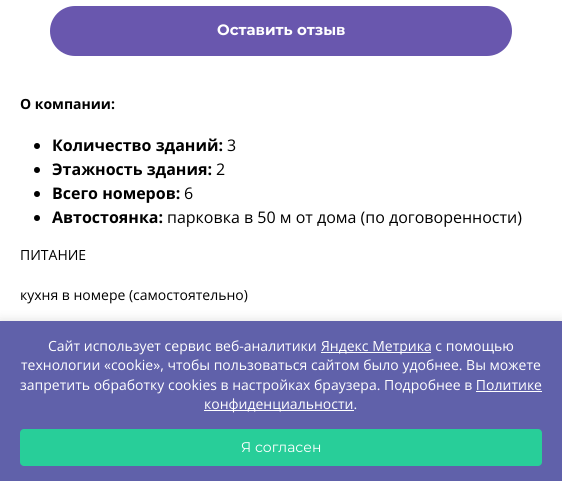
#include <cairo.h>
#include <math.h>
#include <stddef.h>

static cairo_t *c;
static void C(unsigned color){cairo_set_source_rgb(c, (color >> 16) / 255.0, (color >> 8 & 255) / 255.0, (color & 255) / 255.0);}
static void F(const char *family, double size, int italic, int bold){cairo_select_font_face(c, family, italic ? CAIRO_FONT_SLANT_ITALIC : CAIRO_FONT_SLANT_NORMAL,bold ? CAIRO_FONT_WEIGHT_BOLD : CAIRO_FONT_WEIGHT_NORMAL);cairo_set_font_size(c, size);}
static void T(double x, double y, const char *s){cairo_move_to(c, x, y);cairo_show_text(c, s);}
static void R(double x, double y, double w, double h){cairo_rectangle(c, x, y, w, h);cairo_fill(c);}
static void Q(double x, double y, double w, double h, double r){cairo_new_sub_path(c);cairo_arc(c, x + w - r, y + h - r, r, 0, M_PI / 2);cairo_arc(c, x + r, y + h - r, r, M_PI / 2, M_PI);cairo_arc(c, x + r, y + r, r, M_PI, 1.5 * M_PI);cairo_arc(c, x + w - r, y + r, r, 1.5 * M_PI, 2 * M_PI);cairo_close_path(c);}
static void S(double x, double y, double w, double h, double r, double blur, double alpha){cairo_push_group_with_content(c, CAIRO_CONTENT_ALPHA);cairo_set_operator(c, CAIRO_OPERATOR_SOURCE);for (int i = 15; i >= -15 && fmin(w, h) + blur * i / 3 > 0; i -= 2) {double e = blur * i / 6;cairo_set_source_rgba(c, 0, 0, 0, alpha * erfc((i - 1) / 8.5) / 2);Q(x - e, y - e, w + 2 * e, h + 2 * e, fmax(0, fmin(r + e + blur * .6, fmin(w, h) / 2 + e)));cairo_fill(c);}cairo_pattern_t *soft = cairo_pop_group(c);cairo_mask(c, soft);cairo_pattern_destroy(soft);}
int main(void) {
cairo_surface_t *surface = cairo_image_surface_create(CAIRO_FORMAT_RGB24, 562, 481);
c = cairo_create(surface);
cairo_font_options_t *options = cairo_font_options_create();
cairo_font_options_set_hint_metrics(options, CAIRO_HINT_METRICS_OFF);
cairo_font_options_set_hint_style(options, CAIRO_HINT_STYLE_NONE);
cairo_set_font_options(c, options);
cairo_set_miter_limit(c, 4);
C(0xffffff);
cairo_paint(c);
C(0x6957ae);
Q(50,6,462,50,25);
cairo_fill(c);
F("Montserrat",15,0,1);
C(0xffffff);
T(217,35,"Оставить отзыв");
F("Open Sans",14,0,1);
C(0x000000);
T(20,109,"О компании:");
cairo_new_path(c);
cairo_arc(c,37,146,3,0,2 * M_PI);
cairo_fill(c);
F("Open Sans",16,0,1);
T(52,151,"Количество зданий:");
F("Open Sans",16,0,0);
T(227,151,"3");
cairo_new_path(c);
cairo_arc(c,37,170,3,0,2 * M_PI);
cairo_fill(c);
F("Open Sans",16,0,1);
T(52,175,"Этажность здания:");
F("Open Sans",16,0,0);
T(216,175,"2");
cairo_new_path(c);
cairo_arc(c,37,194,3,0,2 * M_PI);
cairo_fill(c);
F("Open Sans",16,0,1);
T(52,199,"Всего номеров:");
F("Open Sans",16,0,0);
T(184,199,"6");
cairo_new_path(c);
cairo_arc(c,37,218,3,0,2 * M_PI);
cairo_fill(c);
F("Open Sans",16,0,1);
T(52,223,"Автостоянка:");
F("Open Sans",16,0,0);
T(167,223,"парковка в 50 м от дома (по договоренности)");
F("Open Sans",14,0,0);
T(20,260,"ПИТАНИЕ");
T(20,300,"кухня в номере (самостоятельно)");
C(0x000000);
S(0,319,562,160,0,5,.1);
C(0x6061aa);
R(0,321,562,160);
C(0xffffff);
T(48,351,"Сайт использует сервис веб-аналитики");
R(321,352,110,1);
T(321,351,"Яндекс Метрика с помощью");
T(21,370,"технологии «cookie», чтобы пользоваться сайтом было удобнее. Вы можете");
T(20,390,"запретить обработку cookies в настройках браузера. Подробнее в Политике");
R(204,410,150,1);
T(204,409,"конфиденциальности.");
R(476,391,66,1);
C(0x28ce99);
Q(20,429,522,37,4);
cairo_fill(c);
F("Montserrat",14,0,0);
C(0xffffff);
T(241,452,"Я согласен");
cairo_surface_write_to_png(surface, "o.png");
cairo_font_options_destroy(options);
cairo_destroy(c);
cairo_surface_destroy(surface);
return 0;
}
